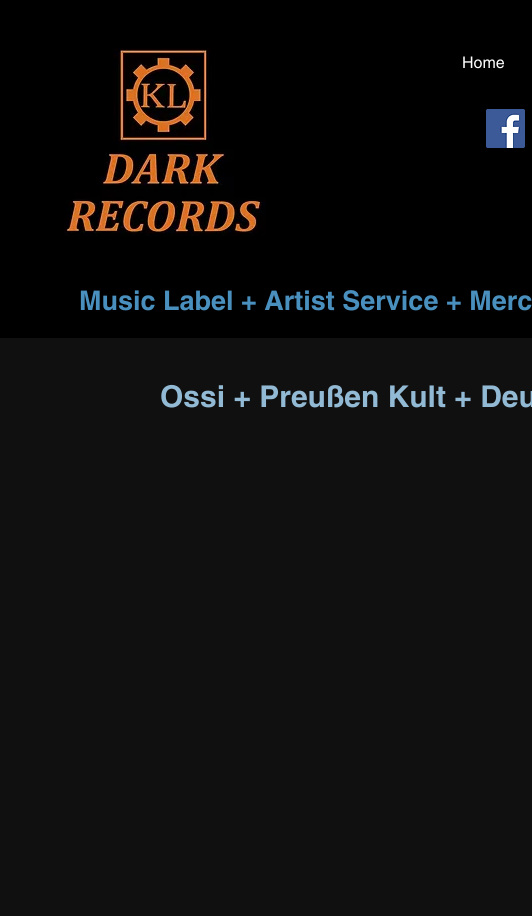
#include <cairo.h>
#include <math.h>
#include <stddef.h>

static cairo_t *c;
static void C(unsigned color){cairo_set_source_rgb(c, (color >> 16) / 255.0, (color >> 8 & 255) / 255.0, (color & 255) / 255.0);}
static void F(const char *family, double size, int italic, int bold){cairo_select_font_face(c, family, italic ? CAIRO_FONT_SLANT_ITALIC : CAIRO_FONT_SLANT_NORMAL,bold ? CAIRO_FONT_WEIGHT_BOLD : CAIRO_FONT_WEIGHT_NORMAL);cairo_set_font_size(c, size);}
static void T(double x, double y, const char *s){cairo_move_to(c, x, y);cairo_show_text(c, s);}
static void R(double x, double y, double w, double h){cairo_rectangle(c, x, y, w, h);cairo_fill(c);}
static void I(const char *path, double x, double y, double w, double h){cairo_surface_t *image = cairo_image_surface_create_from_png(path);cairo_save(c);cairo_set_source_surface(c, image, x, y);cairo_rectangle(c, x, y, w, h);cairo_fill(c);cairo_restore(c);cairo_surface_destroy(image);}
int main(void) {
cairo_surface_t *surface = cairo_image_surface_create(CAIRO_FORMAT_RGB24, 532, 916);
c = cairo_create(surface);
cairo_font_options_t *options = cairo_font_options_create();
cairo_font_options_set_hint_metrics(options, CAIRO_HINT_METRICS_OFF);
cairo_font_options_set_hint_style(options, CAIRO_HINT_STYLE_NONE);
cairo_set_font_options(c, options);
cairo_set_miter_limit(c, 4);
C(0x000000);
cairo_paint(c);
I("1.png",64,48,202,188);
F("helvetica",16,0,0);
C(0xffffff);
T(462,68,"Home");
I("2.png",486,109,39,39);
F("helvetica",27,0,1);
C(0x4a90bf);
T(79,310,"Music Label + Artist Service + Merc");
C(0x101010);
R(0,338,532,578);
F("helvetica",30,0,1);
C(0x93bad4);
T(160,407,"Ossi + Preußen Kult + Deu");
cairo_surface_write_to_png(surface, "o.png");
cairo_font_options_destroy(options);
cairo_destroy(c);
cairo_surface_destroy(surface);
return 0;
}
